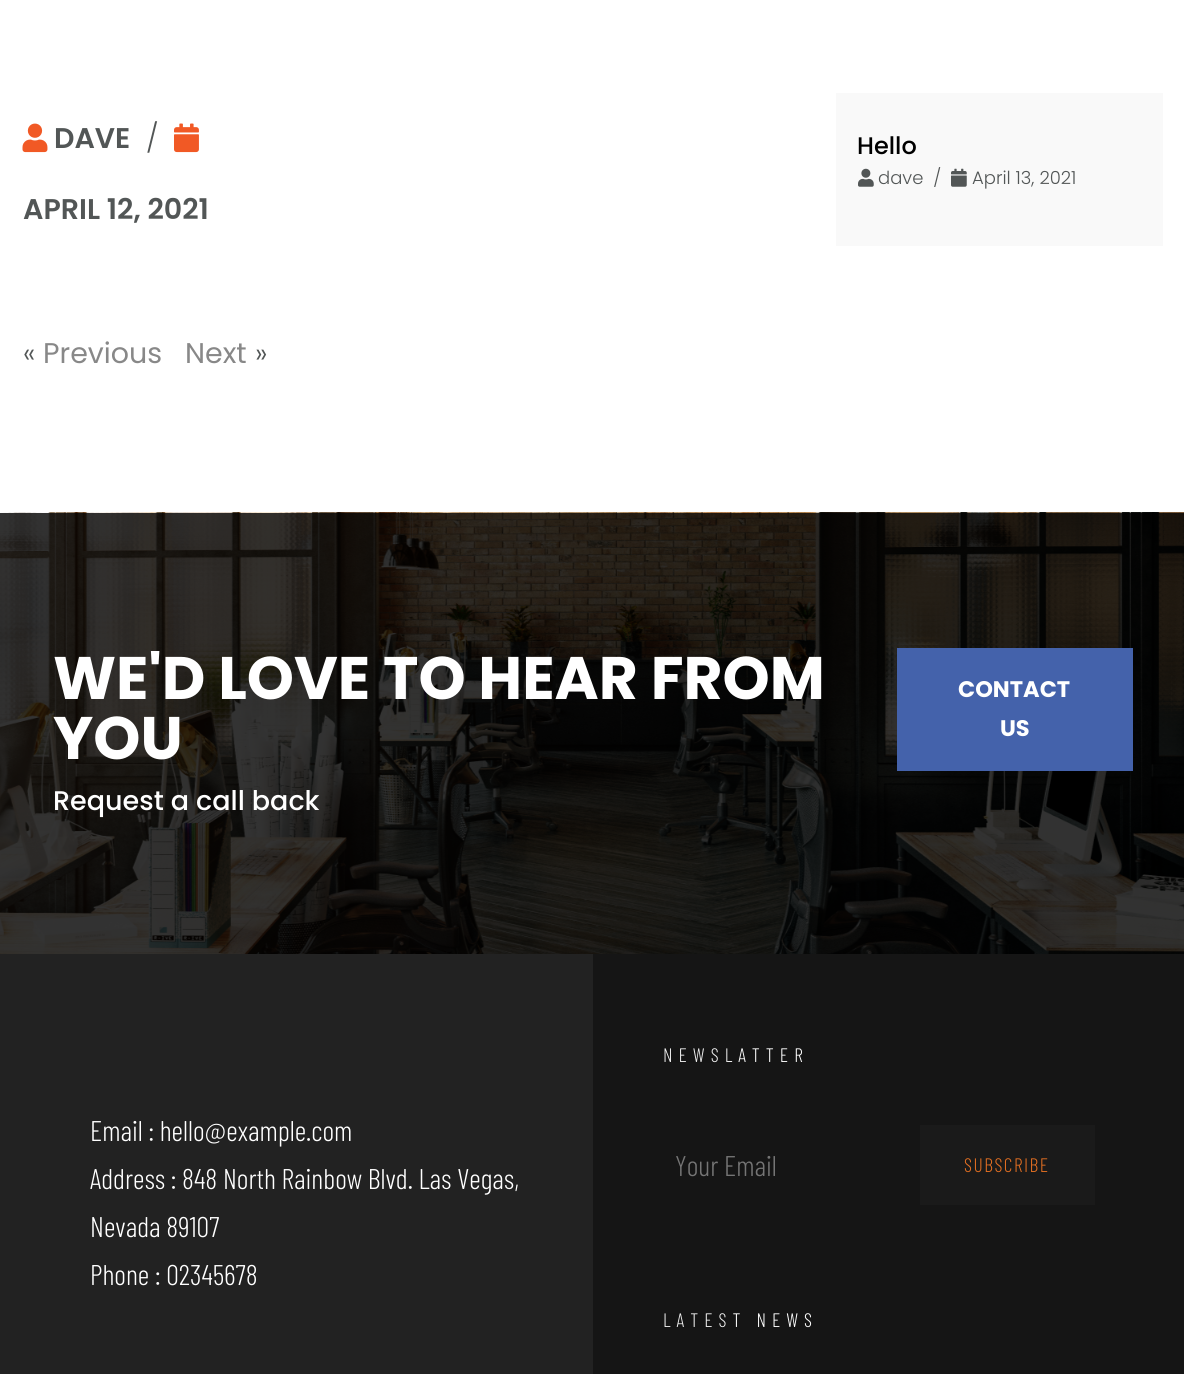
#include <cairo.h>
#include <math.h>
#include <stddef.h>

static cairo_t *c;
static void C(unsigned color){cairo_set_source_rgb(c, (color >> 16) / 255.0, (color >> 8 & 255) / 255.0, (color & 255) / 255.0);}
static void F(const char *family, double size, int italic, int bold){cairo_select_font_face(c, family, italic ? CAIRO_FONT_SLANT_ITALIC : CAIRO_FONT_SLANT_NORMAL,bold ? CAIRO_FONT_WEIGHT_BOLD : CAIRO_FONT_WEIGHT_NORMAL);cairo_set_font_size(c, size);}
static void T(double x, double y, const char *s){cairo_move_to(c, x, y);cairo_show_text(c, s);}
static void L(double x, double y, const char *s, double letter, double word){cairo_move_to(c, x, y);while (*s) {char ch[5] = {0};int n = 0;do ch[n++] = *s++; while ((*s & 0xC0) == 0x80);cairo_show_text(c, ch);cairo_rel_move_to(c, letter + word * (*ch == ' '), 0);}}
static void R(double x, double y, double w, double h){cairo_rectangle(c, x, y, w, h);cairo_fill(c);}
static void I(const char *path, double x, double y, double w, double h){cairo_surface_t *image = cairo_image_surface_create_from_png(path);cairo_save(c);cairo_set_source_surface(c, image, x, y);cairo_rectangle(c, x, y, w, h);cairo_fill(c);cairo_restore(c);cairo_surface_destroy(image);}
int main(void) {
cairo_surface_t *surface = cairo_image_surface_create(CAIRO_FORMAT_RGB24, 1184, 1374);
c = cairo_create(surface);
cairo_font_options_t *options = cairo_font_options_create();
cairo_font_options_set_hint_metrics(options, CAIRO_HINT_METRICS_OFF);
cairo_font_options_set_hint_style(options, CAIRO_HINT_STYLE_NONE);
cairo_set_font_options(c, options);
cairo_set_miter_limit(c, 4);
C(0xffffff);
cairo_paint(c);
I("1.png",22,123,26,30);
F("Poppins SemiBold",28.5,0,0);
C(0x525656);
T(54,148,"DAVE");
F("Poppins Light",28.5,0,0);
T(146,148,"/");
I("2.png",174,123,25,30);
F("Poppins SemiBold",28.5,0,0);
T(23,219,"APRIL 12, 2021");
F("Poppins Light",28.5,0,0);
T(23,363,"«");
F("Poppins",28.5,0,0);
C(0x888888);
T(43,363,"Previous");
T(185,363,"Next");
F("Poppins Light",28.5,0,0);
C(0x525656);
T(255,363,"»");
C(0xf9f9f9);
R(836,93,327,153);
F("Poppins Medium",24,0,0);
C(0x000000);
T(857,154,"Hello");
I("3.png",858,168,16,19);
F("Poppins Light",18,0,0);
C(0x525656);
T(878,184,"dave  /");
I("4.png",951,168,16,19);
T(972,184,"April 13, 2021");
I("5.png",0,512,1184,442);
F("Poppins",60,0,1);
C(0xffffff);
T(53,699,"WE'D LOVE TO HEAR FROM");
T(53,759,"YOU");
F("Poppins Medium",27,0,0);
T(53,810,"Request a call back");
C(0x4462ab);
R(897,648,236,123);
F("Poppins",22.5,0,1);
C(0xffffff);
T(958,697,"CONTACT");
T(1000,736,"US");
C(0x151515);
R(593,954,591,420);
C(0x222222);
R(0,954,593,420);
F("Barlow Condensed Light",28.5,0,0);
C(0xffffff);
T(90,1141,"Email : hello@example.com");
T(90,1189,"Address : 848 North Rainbow Blvd. Las Vegas,");
T(90,1237,"Nevada 89107");
T(90,1285,"Phone : 02345678");
F("Barlow Condensed Light",19.5,0,0);
L(663,1062,"NEWSLATTER",6,0);
cairo_set_source_rgba(c,0,0,0,0.07);
R(664,1048,64,15);
F("Barlow Condensed Light",28.5,0,0);
C(0x757575);
T(675,1176,"Your Email");
C(0x1a1a1a);
R(920,1125,175,80);
F("Barlow Condensed Light",19.5,0,0);
C(0xe46f21);
L(964,1172,"SUBSCRIBE",1.5,0);
C(0xffffff);
L(663,1327,"LATEST NEWS",6,0);
cairo_set_source_rgba(c,0,0,0,0.07);
R(664,1313,62,15);
cairo_surface_write_to_png(surface, "o.png");
cairo_font_options_destroy(options);
cairo_destroy(c);
cairo_surface_destroy(surface);
return 0;
}
